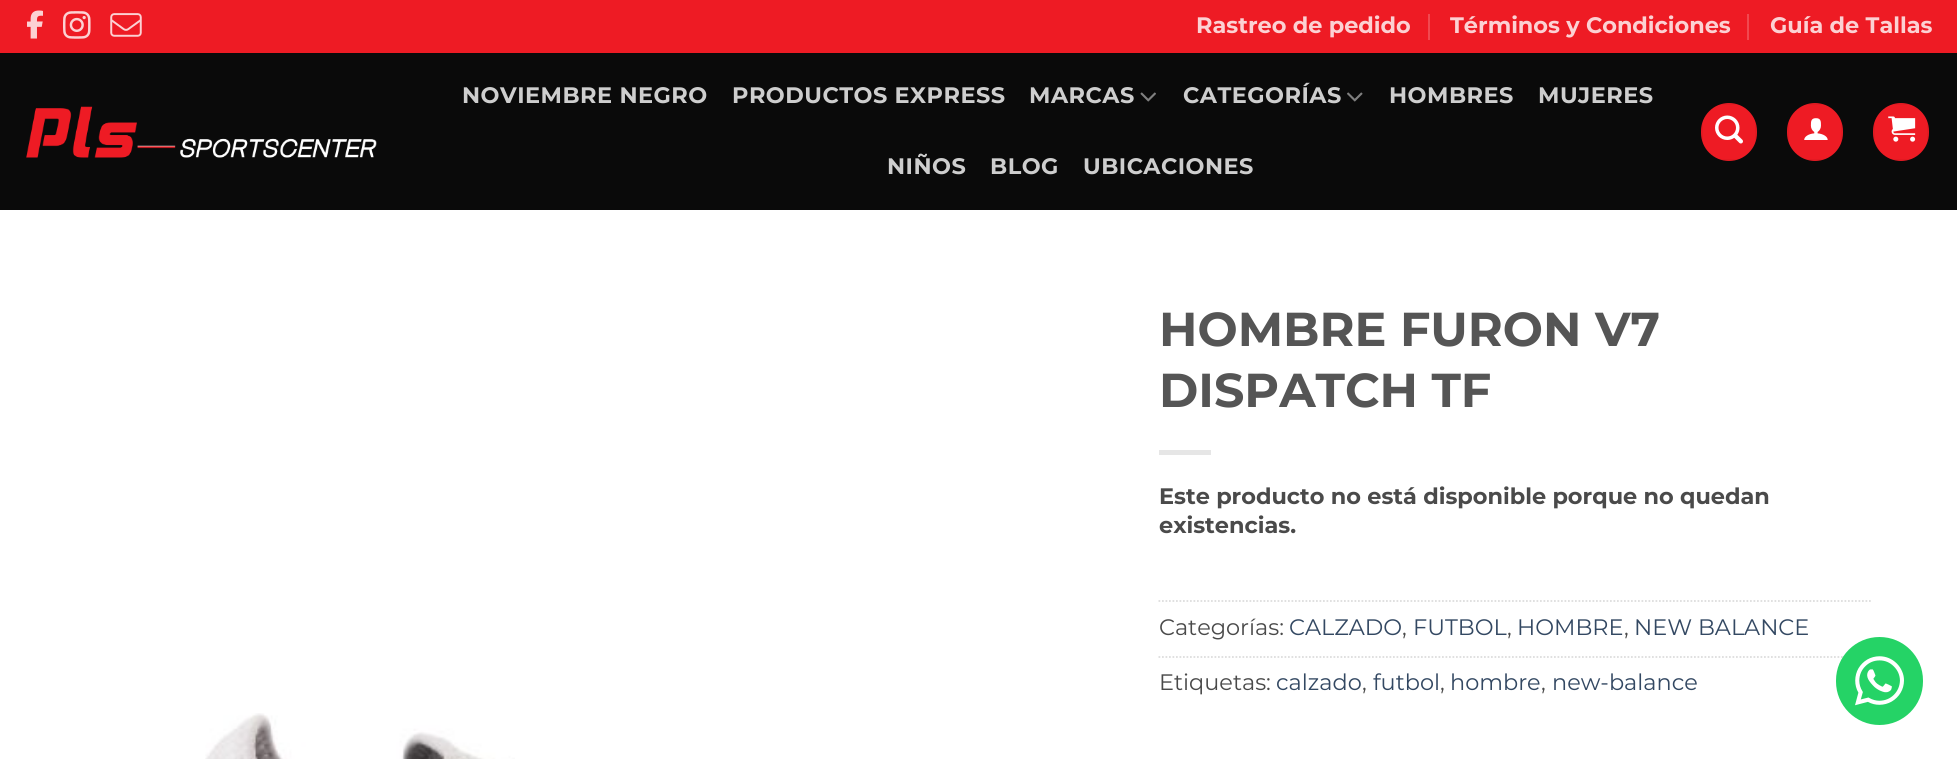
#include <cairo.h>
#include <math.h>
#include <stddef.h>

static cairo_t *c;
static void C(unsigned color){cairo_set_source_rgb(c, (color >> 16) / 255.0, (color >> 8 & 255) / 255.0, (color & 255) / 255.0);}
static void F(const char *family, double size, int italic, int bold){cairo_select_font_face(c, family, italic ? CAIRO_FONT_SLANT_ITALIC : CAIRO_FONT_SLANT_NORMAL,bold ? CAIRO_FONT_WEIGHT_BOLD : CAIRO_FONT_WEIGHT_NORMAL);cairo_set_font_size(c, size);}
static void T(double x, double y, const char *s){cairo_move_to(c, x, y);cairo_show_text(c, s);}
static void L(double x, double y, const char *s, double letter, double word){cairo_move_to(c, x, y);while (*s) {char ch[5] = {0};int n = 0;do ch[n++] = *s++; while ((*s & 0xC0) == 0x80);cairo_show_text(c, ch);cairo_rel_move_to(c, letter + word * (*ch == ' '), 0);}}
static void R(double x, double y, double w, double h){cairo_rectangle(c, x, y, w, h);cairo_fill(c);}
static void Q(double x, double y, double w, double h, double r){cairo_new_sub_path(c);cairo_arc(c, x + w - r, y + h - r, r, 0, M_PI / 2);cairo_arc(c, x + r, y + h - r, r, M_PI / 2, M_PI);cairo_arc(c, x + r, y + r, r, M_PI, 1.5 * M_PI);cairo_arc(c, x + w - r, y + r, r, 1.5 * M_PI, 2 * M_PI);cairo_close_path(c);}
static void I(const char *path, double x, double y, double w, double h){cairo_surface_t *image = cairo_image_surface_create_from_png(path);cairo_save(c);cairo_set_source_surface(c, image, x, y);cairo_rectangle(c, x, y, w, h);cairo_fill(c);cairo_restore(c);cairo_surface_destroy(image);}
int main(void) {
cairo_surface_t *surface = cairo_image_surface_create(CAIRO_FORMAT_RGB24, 1957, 759);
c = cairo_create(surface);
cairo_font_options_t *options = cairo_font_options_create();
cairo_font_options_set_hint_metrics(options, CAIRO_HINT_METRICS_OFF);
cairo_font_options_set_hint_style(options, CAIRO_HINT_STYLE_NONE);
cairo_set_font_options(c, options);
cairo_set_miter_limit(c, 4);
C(0xffffff);
cairo_paint(c);
C(0xee1b24);
R(0,0,1957,53);
I("1.png",27,10,16,29);
I("2.png",63,11,28,28);
I("3.png",110,13,32,24);
F("Montserrat",22.4,0,1);
C(0xfcd1d3);
T(1196,33,"Rastreo de pedido");
C(0xf14950);
R(1428,14,2,26);
C(0xfcd1d3);
T(1450,33,"Términos y Condiciones");
C(0xf14950);
R(1747,14,2,26);
C(0xfcd1d3);
T(1770,33,"Guía de Tallas");
C(0x0a0a0a);
R(0,53,1957,157);
I("4.png",26,106,351,52);
C(0xcecece);
L(462,103,"NOVIEMBRE NEGRO",.5,0);
L(732,103,"PRODUCTOS EXPRESS",.5,0);
L(1029,103,"MARCAS",.5,0);
I("5.png",1140,92,16,10);
L(1183,103,"CATEGORÍAS",.5,0);
I("6.png",1347,92,16,10);
L(1389,103,"HOMBRES",.5,0);
L(1538,103,"MUJERES",.5,0);
L(887,174,"NIÑOS",.5,0);
L(990,174,"BLOG",.5,0);
L(1083,174,"UBICACIONES",.5,0);
C(0xee1b24);
Q(1701,103,56,58,28);
cairo_fill(c);
cairo_rectangle(c,1702,104,54,56);
cairo_set_source_rgba(c,0,0,0,0.05);
cairo_stroke(c);
I("7.png",1715,115,28,29);
C(0xee1b24);
Q(1787,103,56,58,28);
cairo_fill(c);
cairo_rectangle(c,1788,104,54,56);
cairo_set_source_rgba(c,0,0,0,0.05);
cairo_stroke(c);
I("8.png",1804,118,24,22);
C(0xee1b24);
Q(1873,103,56,58,28);
cairo_fill(c);
cairo_rectangle(c,1874,104,54,56);
cairo_set_source_rgba(c,0,0,0,0.05);
cairo_stroke(c);
I("9.png",1888,116,28,26);
F("Montserrat",47.6,0,1);
C(0x555555);
T(1159,346,"HOMBRE FURON V7");
T(1159,407,"DISPATCH TF");
C(0xe6e6e6);
R(1159,450,52,5);
F("Montserrat",22.4,0,1);
C(0x4a4a4a);
T(1159,504,"Este producto no está disponible porque no quedan");
T(1159,533,"existencias.");
cairo_new_path(c);
cairo_move_to(c,1158.5,601);
cairo_line_to(c,1872.5,601);
C(0xdddddd);
cairo_set_line_width(c,1.8);
cairo_set_dash(c,(double[]){1.75,1.75},2,0);
cairo_stroke(c);
F("Montserrat",22.4,0,0);
C(0x4a4a4a);
T(1159,635,"Categorías:");
C(0x334862);
T(1289,635,"CALZADO");
C(0x4a4a4a);
T(1402,635,",");
C(0x334862);
T(1413,635,"FUTBOL");
C(0x4a4a4a);
T(1507,635,",");
C(0x334862);
T(1517,635,"HOMBRE");
C(0x4a4a4a);
T(1624,635,",");
C(0x334862);
T(1634,635,"NEW BALANCE");
cairo_new_path(c);
cairo_move_to(c,1158.5,657);
cairo_line_to(c,1872.5,657);
C(0xdddddd);
cairo_stroke(c);
C(0x4a4a4a);
T(1159,690,"Etiquetas:");
C(0x334862);
T(1276,690,"calzado");
C(0x4a4a4a);
T(1362,690,",");
C(0x334862);
T(1373,690,"futbol");
C(0x4a4a4a);
T(1440,690,",");
C(0x334862);
T(1450,690,"hombre");
C(0x4a4a4a);
T(1541,690,",");
C(0x334862);
T(1552,690,"new-balance");
I("10.png",205,713,310,46);
C(0x25d366);
Q(1836,637,87,88,43.5);
cairo_fill(c);
I("11.png",1855,656,49,50);
cairo_surface_write_to_png(surface, "o.png");
cairo_font_options_destroy(options);
cairo_destroy(c);
cairo_surface_destroy(surface);
return 0;
}
